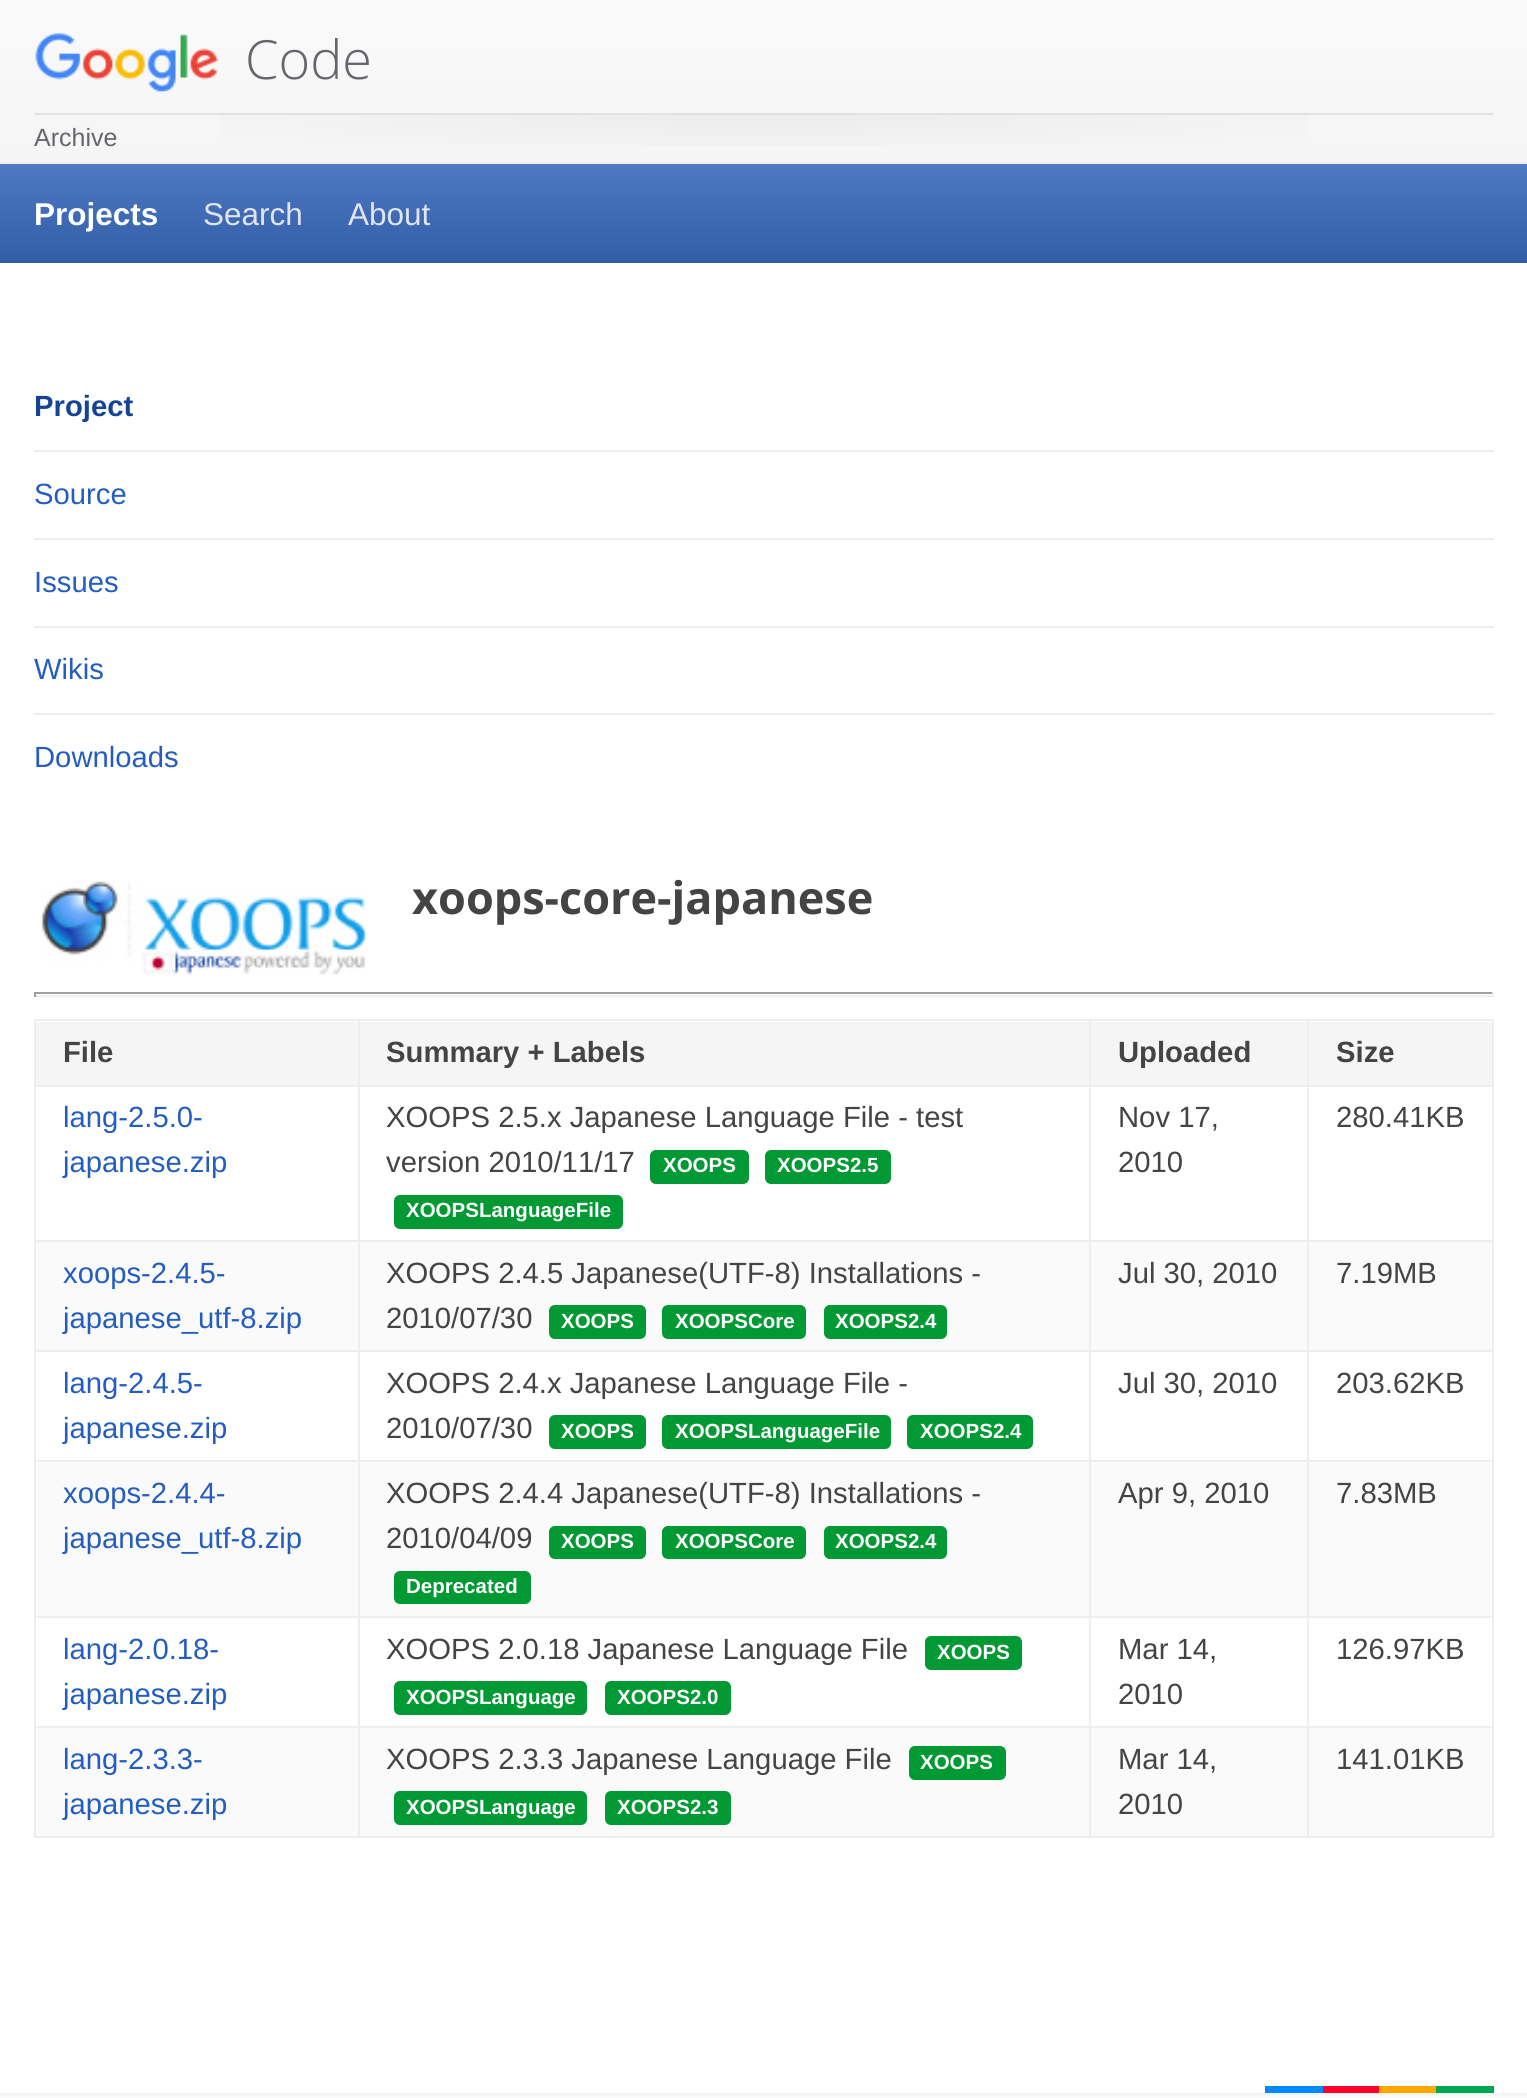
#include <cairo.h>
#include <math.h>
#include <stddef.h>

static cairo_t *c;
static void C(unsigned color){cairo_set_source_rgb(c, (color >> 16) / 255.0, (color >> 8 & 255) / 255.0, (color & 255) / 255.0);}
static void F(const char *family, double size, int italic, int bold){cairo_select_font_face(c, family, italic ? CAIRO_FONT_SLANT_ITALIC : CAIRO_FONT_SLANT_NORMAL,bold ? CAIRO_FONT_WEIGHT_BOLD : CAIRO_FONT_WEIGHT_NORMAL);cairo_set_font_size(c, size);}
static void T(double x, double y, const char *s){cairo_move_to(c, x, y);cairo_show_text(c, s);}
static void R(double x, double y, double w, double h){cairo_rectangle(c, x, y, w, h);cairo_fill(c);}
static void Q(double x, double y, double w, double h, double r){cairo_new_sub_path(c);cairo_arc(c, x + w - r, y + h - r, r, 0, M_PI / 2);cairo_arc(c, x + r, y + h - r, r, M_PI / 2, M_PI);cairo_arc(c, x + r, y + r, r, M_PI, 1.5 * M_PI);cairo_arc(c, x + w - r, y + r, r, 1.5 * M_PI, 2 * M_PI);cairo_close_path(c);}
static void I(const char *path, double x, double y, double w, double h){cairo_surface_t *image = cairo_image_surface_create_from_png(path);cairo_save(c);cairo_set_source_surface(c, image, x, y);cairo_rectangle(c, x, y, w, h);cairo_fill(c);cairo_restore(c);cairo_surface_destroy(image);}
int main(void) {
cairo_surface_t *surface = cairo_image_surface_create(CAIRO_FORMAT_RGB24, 1527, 2098);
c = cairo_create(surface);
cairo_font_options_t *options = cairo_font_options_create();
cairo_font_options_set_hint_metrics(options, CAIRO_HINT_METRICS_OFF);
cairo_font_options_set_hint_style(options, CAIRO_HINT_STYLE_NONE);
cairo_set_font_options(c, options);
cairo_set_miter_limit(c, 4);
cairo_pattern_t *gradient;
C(0xffffff);
cairo_paint(c);
gradient = cairo_pattern_create_linear(0,0,0,162);
cairo_pattern_add_color_stop_rgba(gradient,0,0.98,0.98,0.98,1);
cairo_pattern_add_color_stop_rgba(gradient,1,0.961,0.961,0.961,1);
cairo_set_source(c,gradient);
cairo_pattern_destroy(gradient);
R(0,0,1527,162);
C(0xeeeeee);
R(0,162,1527,2);
I("1.png",35,32,184,61);
F("Open Sans Light",54,0,0);
C(0x63666a);
T(245,79,"Code");
gradient = cairo_pattern_create_radial(0,0,0,0,0,1);
cairo_pattern_set_matrix(gradient, &(cairo_matrix_t){1.0 / 730, 0, 0, 1.0 / 47, -1.0 * 764 / 730, -1.0 * 115 / 47});
cairo_pattern_add_color_stop_rgba(gradient,0,0.925,0.925,0.925,1);
cairo_pattern_add_color_stop_rgba(gradient,1,0.965,0.965,0.965,1);
cairo_set_source(c,gradient);
cairo_pattern_destroy(gradient);
R(218,115,1092,31);
C(0xe1e1e1);
R(34,113,1460,2);
F("Liberation Sans",25,0,0);
C(0x63666a);
T(34,146,"Archive");
gradient = cairo_pattern_create_linear(0,164,0,263);
cairo_pattern_add_color_stop_rgba(gradient,0,0.306,0.471,0.761,1);
cairo_pattern_add_color_stop_rgba(gradient,1,0.196,0.365,0.655,1);
cairo_set_source(c,gradient);
cairo_pattern_destroy(gradient);
R(0,164,1527,99);
F("Liberation Sans",31.5,0,1);
C(0xffffff);
T(34,225,"Projects");
F("Liberation Sans",31.5,0,0);
C(0xe1e5f2);
T(203,225,"Search");
T(348,225,"About");
C(0xeeeeee);
R(34,450,1460,2);
F("Liberation Sans",29.25,0,1);
C(0x164495);
T(34,416,"Project");
C(0xeeeeee);
R(34,538,1460,2);
F("Liberation Sans",29.25,0,0);
C(0x245dc1);
T(34,504,"Source");
C(0xeeeeee);
R(34,626,1460,2);
C(0x245dc1);
T(34,592,"Issues");
C(0xeeeeee);
R(34,713,1460,2);
C(0x245dc1);
T(34,679,"Wikis");
T(34,767,"Downloads");
I("2.png",40,881,328,94);
F("Open Sans",45,0,1);
C(0x444444);
T(412,914,"xoops-core-japanese");
C(0x9f9f9f);
R(34,992,1460,2);
C(0xeeeeee);
R(1492,992,2,5);
R(34,995,1460,2);
C(0x9f9f9f);
R(34,992,2,5);
C(0xf5f5f5);
R(36,1022,322,63);
C(0xeeeeee);
R(1307,1019,187,2);
R(1307,1085,187,2);
R(1307,1240,187,2);
C(0xfafafa);
R(36,1242,1456,108);
C(0xeeeeee);
R(1307,1350,187,2);
R(1307,1460,187,2);
C(0xfafafa);
R(36,1463,1456,153);
C(0xeeeeee);
R(1307,1616,187,2);
R(1307,1726,187,2);
C(0xfafafa);
R(36,1728,1456,108);
C(0xeeeeee);
R(1492,1726,2,112);
R(1307,1836,187,2);
R(1307,1726,2,112);
R(1089,1726,221,2);
R(1307,1616,2,112);
R(1089,1616,221,2);
R(1307,1460,2,158);
R(1089,1460,221,2);
R(1307,1350,2,113);
R(1089,1350,221,2);
R(1307,1240,2,112);
R(1089,1240,221,2);
R(1307,1085,2,157);
R(1089,1085,221,2);
R(1307,1019,2,68);
R(1089,1019,221,2);
R(1089,1836,221,2);
R(1089,1726,2,112);
R(358,1726,733,2);
R(1089,1616,2,112);
R(358,1616,733,2);
R(1089,1460,2,158);
R(358,1460,733,2);
R(1089,1350,2,113);
R(358,1350,733,2);
R(1089,1240,2,112);
R(358,1240,733,2);
R(1089,1085,2,157);
R(358,1085,733,2);
R(1089,1019,2,68);
R(358,1019,733,2);
R(358,1836,733,2);
R(358,1726,2,112);
R(34,1726,326,2);
R(358,1616,2,112);
R(34,1616,326,2);
R(358,1460,2,158);
R(34,1460,326,2);
R(358,1350,2,113);
R(34,1350,326,2);
R(358,1240,2,112);
R(34,1240,326,2);
R(358,1085,2,157);
R(34,1085,326,2);
R(358,1019,2,68);
R(34,1019,326,2);
R(34,1836,326,2);
R(34,1726,2,112);
R(34,1616,2,112);
R(34,1460,2,158);
R(34,1350,2,113);
R(34,1240,2,112);
R(34,1085,2,157);
R(34,1019,2,68);
F("Liberation Sans",29.25,0,1);
C(0x444444);
T(63,1062,"File");
C(0xf5f5f5);
R(360,1022,729,63);
C(0x444444);
T(386,1062,"Summary + Labels");
C(0xf5f5f5);
R(1091,1022,216,63);
C(0x444444);
T(1118,1062,"Uploaded");
C(0xf5f5f5);
R(1309,1022,183,63);
C(0xeeeeee);
R(1492,1616,2,112);
R(1492,1460,2,158);
R(1492,1350,2,113);
R(1492,1240,2,112);
R(1492,1085,2,157);
R(1492,1019,2,68);
C(0x444444);
T(1336,1062,"Size");
F("Liberation Sans",29.25,0,0);
C(0x245dc1);
T(63,1127,"lang-2.5.0-");
T(63,1172,"japanese.zip");
C(0x444444);
T(386,1127,"XOOPS 2.5.x Japanese Language File - test");
T(386,1172,"version 2010/11/17");
C(0x009933);
Q(650,1150,99,34,6);
cairo_fill(c);
F("Liberation Sans",20.5,0,1);
C(0xffffff);
T(663,1172,"XOOPS");
C(0x009933);
Q(765,1150,126,34,6);
cairo_fill(c);
C(0xffffff);
T(777,1172,"XOOPS2.5");
C(0x009933);
Q(394,1195,229,34,6);
cairo_fill(c);
C(0xffffff);
T(406,1217,"XOOPSLanguageFile");
F("Liberation Sans",29.25,0,0);
C(0x444444);
T(1118,1127,"Nov 17,");
T(1118,1172,"2010");
T(1336,1127,"280.41KB");
C(0x245dc1);
T(63,1283,"xoops-2.4.5-");
T(63,1328,"japanese_utf-8.zip");
C(0x444444);
T(386,1283,"XOOPS 2.4.5 Japanese(UTF-8) Installations -");
T(386,1328,"2010/07/30");
C(0x009933);
Q(549,1305,97,34,6);
cairo_fill(c);
F("Liberation Sans",20.5,0,1);
C(0xffffff);
T(561,1328,"XOOPS");
C(0x009933);
Q(662,1305,144,34,6);
cairo_fill(c);
C(0xffffff);
T(675,1328,"XOOPSCore");
C(0x009933);
Q(824,1305,123,34,6);
cairo_fill(c);
C(0xffffff);
T(835,1328,"XOOPS2.4");
F("Liberation Sans",29.25,0,0);
C(0x444444);
T(1118,1283,"Jul 30, 2010");
T(1336,1283,"7.19MB");
C(0x245dc1);
T(63,1393,"lang-2.4.5-");
T(63,1438,"japanese.zip");
C(0x444444);
T(386,1393,"XOOPS 2.4.x Japanese Language File -");
T(386,1438,"2010/07/30");
C(0x009933);
Q(549,1415,97,34,6);
cairo_fill(c);
F("Liberation Sans",20.5,0,1);
C(0xffffff);
T(561,1438,"XOOPS");
C(0x009933);
Q(662,1415,229,34,6);
cairo_fill(c);
C(0xffffff);
T(675,1438,"XOOPSLanguageFile");
C(0x009933);
Q(907,1415,126,34,6);
cairo_fill(c);
C(0xffffff);
T(920,1438,"XOOPS2.4");
F("Liberation Sans",29.25,0,0);
C(0x444444);
T(1118,1393,"Jul 30, 2010");
T(1336,1393,"203.62KB");
C(0x245dc1);
T(63,1503,"xoops-2.4.4-");
T(63,1548,"japanese_utf-8.zip");
C(0x444444);
T(386,1503,"XOOPS 2.4.4 Japanese(UTF-8) Installations -");
T(386,1548,"2010/04/09");
C(0x009933);
Q(549,1526,97,33,6);
cairo_fill(c);
F("Liberation Sans",20.5,0,1);
C(0xffffff);
T(561,1548,"XOOPS");
C(0x009933);
Q(662,1526,144,33,6);
cairo_fill(c);
C(0xffffff);
T(675,1548,"XOOPSCore");
C(0x009933);
Q(824,1526,123,33,6);
cairo_fill(c);
C(0xffffff);
T(835,1548,"XOOPS2.4");
C(0x009933);
Q(394,1571,137,33,6);
cairo_fill(c);
C(0xffffff);
T(406,1593,"Deprecated");
F("Liberation Sans",29.25,0,0);
C(0x444444);
T(1118,1503,"Apr 9, 2010");
T(1336,1503,"7.83MB");
C(0x245dc1);
T(63,1659,"lang-2.0.18-");
T(63,1704,"japanese.zip");
C(0x444444);
T(386,1659,"XOOPS 2.0.18 Japanese Language File");
C(0x009933);
Q(925,1636,97,34,6);
cairo_fill(c);
F("Liberation Sans",20.5,0,1);
C(0xffffff);
T(937,1659,"XOOPS");
C(0x009933);
Q(394,1681,193,34,6);
cairo_fill(c);
C(0xffffff);
T(406,1704,"XOOPSLanguage");
C(0x009933);
Q(605,1681,126,34,6);
cairo_fill(c);
C(0xffffff);
T(617,1704,"XOOPS2.0");
F("Liberation Sans",29.25,0,0);
C(0x444444);
T(1118,1659,"Mar 14,");
T(1118,1704,"2010");
T(1336,1659,"126.97KB");
C(0x245dc1);
T(63,1769,"lang-2.3.3-");
T(63,1814,"japanese.zip");
C(0x444444);
T(386,1769,"XOOPS 2.3.3 Japanese Language File");
C(0x009933);
Q(909,1746,97,34,6);
cairo_fill(c);
F("Liberation Sans",20.5,0,1);
C(0xffffff);
T(920,1769,"XOOPS");
C(0x009933);
Q(394,1791,193,34,6);
cairo_fill(c);
C(0xffffff);
T(406,1814,"XOOPSLanguage");
C(0x009933);
Q(605,1791,126,34,6);
cairo_fill(c);
C(0xffffff);
T(617,1814,"XOOPS2.3");
F("Liberation Sans",29.25,0,0);
C(0x444444);
T(1118,1769,"Mar 14,");
T(1118,1814,"2010");
T(1336,1769,"141.01KB");
C(0xff002b);
R(1323,2086,56,7);
C(0x0089fa);
R(1265,2086,58,7);
C(0x00a753);
R(1436,2086,58,7);
C(0xffa900);
R(1379,2086,57,7);
C(0xf9f9f9);
R(0,2095,1527,3);
C(0xf5f5f5);
R(0,2093,1527,2);
cairo_surface_write_to_png(surface, "o.png");
cairo_font_options_destroy(options);
cairo_destroy(c);
cairo_surface_destroy(surface);
return 0;
}
